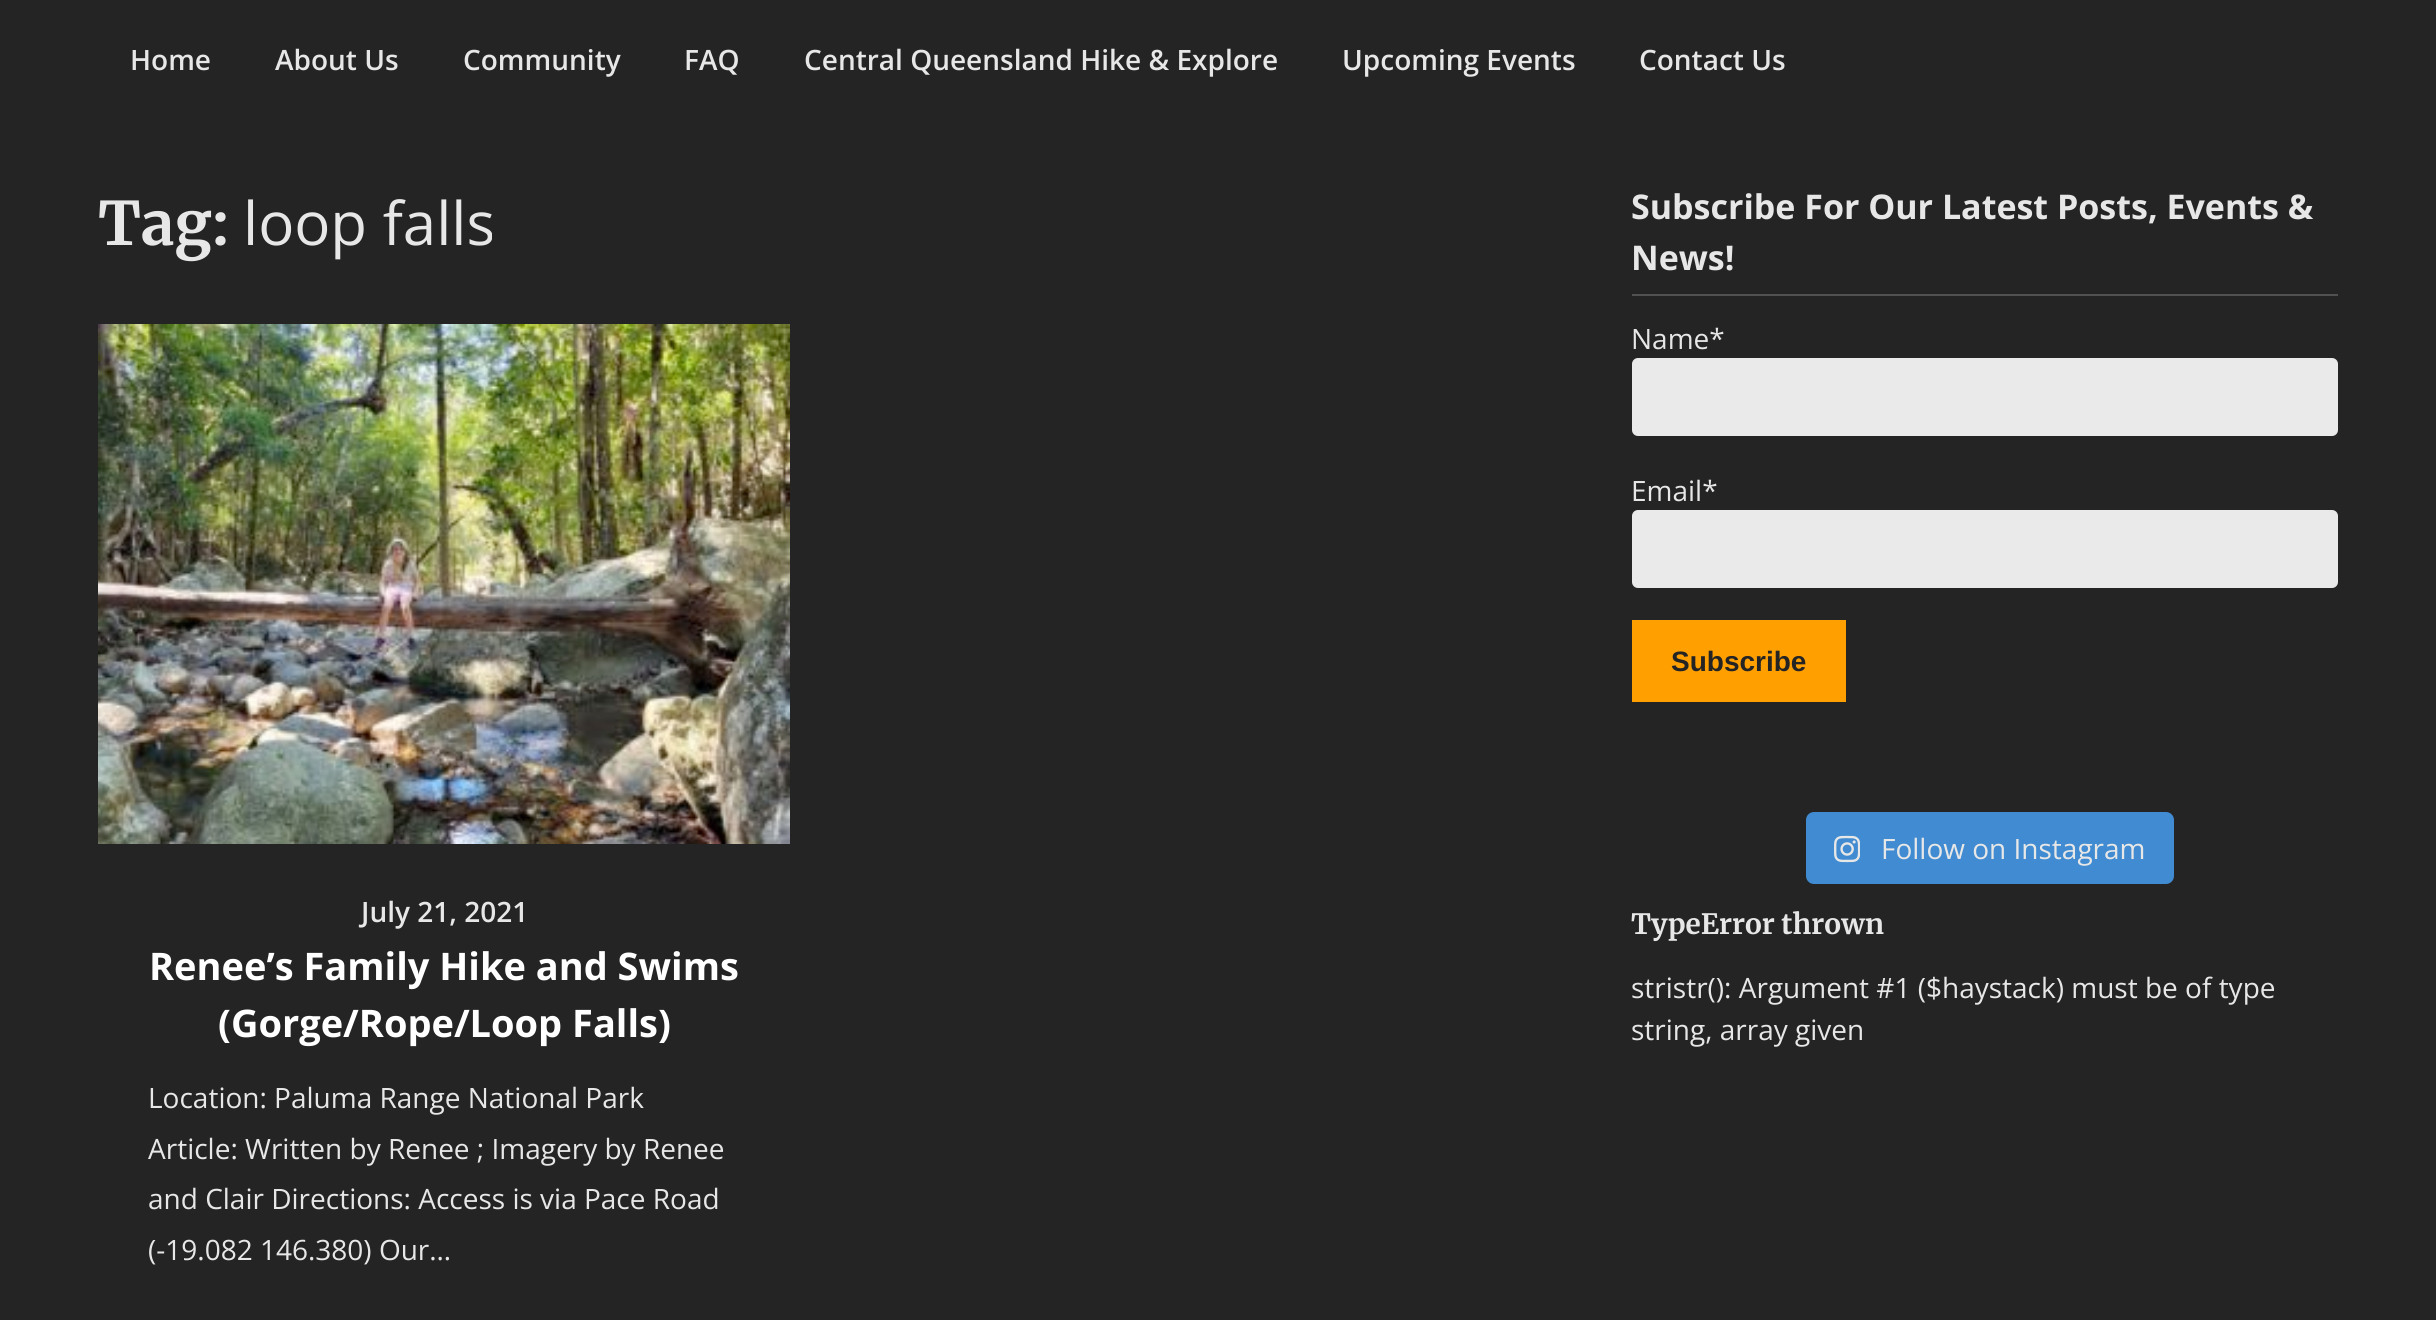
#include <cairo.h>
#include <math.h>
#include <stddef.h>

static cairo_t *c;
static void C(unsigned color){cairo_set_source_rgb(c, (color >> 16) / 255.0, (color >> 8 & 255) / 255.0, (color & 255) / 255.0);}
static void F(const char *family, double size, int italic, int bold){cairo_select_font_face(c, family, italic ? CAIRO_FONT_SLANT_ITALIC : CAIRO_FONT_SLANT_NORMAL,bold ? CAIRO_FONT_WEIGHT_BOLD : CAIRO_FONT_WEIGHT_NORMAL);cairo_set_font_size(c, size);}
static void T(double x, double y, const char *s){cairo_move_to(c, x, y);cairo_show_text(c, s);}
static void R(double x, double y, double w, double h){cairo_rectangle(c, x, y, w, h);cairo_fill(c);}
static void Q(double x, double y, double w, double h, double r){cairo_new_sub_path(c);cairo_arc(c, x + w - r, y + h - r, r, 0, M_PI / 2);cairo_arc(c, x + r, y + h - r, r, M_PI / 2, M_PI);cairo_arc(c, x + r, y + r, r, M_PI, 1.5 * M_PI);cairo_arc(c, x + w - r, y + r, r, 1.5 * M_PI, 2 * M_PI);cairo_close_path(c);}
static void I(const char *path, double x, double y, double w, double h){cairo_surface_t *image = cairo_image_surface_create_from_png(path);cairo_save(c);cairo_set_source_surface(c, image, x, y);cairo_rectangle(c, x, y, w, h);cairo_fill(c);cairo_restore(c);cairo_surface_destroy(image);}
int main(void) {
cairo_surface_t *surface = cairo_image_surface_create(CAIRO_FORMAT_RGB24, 2436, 1320);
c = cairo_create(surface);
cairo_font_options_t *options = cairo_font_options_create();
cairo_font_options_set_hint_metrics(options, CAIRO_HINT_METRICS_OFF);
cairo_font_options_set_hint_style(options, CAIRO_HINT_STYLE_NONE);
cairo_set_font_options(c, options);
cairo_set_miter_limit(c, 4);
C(0x242424);
cairo_paint(c);
F("Open Sans SemiBold",28,0,0);
C(0xe7e7e7);
T(130,70,"Home");
T(275,70,"About Us");
T(463,70,"Community");
T(684,70,"FAQ");
T(804,70,"Central Queensland Hike & Explore");
T(1342,70,"Upcoming Events");
T(1639,70,"Contact Us");
F("Merriweather",60,0,1);
T(98,245,"Tag:");
F("Open Sans",60,0,0);
T(243,245,"loop falls");
I("1.png",98,324,692,520);
F("Open Sans SemiBold",28,0,0);
T(361,922,"July 21, 2021");
F("Open Sans",38,0,1);
C(0xffffff);
T(149,980,"Renee’s Family Hike and Swims");
T(218,1037,"(Gorge/Rope/Loop Falls)");
F("Open Sans",28,0,0);
C(0xe7e7e7);
T(148,1108,"Location: Paluma Range National Park");
T(148,1159,"Article: Written by Renee ; Imagery by Renee");
T(148,1209,"and Clair Directions: Access is via Pace Road");
T(148,1260,"(-19.082 146.380) Our…");
C(0x515151);
R(1632,294,706,2);
F("Open Sans",34,0,1);
C(0xe7e7e7);
T(1631,219,"Subscribe For Our Latest Posts, Events &");
T(1631,270,"News!");
F("Open Sans",28,0,0);
T(1631,349,"Name*");
C(0xeaeaea);
Q(1632,358,706,78,6);
cairo_fill(c);
C(0xe7e7e7);
T(1631,501,"Email*");
C(0xeaeaea);
Q(1632,510,706,78,6);
cairo_fill(c);
C(0xffa000);
R(1632,620,214,82);
F("Liberation Sans",28,0,1);
C(0x242424);
T(1671,671,"Subscribe");
C(0x408bd1);
Q(1806,812,368,72,8);
cairo_fill(c);
I("2.png",1834,835,26,28);
F("Open Sans",28,0,0);
C(0xe7e7e7);
T(1881,859,"Follow on Instagram");
F("Merriweather",28,0,1);
T(1631,934,"TypeError thrown");
F("Open Sans",28,0,0);
T(1631,998,"stristr(): Argument #1 ($haystack) must be of type");
T(1631,1040,"string, array given");
cairo_surface_write_to_png(surface, "o.png");
cairo_font_options_destroy(options);
cairo_destroy(c);
cairo_surface_destroy(surface);
return 0;
}
